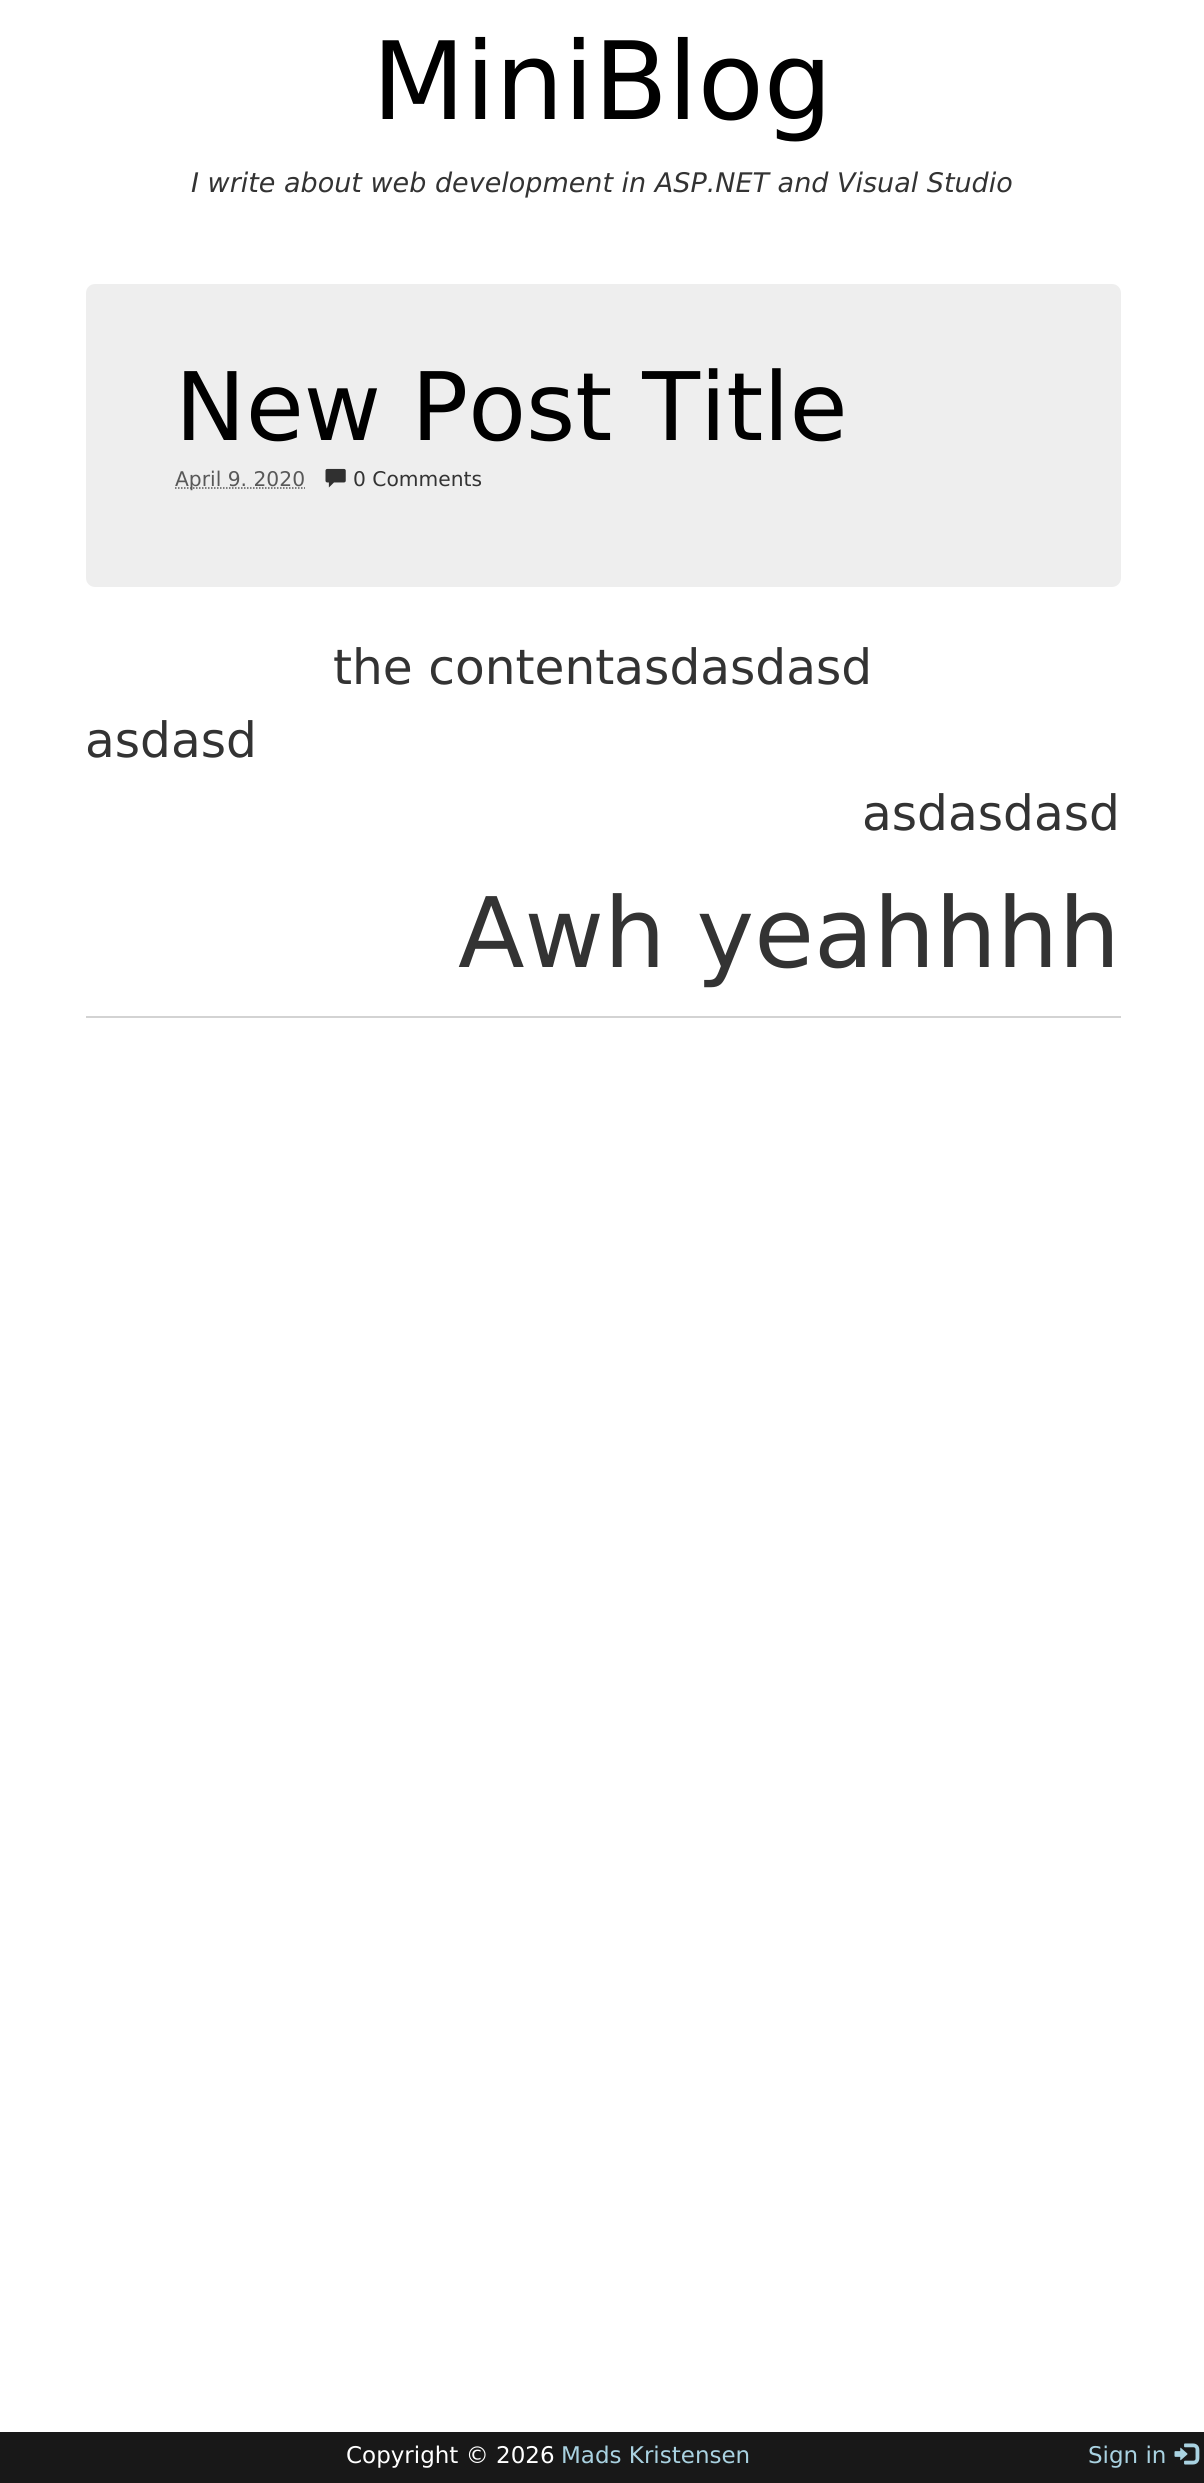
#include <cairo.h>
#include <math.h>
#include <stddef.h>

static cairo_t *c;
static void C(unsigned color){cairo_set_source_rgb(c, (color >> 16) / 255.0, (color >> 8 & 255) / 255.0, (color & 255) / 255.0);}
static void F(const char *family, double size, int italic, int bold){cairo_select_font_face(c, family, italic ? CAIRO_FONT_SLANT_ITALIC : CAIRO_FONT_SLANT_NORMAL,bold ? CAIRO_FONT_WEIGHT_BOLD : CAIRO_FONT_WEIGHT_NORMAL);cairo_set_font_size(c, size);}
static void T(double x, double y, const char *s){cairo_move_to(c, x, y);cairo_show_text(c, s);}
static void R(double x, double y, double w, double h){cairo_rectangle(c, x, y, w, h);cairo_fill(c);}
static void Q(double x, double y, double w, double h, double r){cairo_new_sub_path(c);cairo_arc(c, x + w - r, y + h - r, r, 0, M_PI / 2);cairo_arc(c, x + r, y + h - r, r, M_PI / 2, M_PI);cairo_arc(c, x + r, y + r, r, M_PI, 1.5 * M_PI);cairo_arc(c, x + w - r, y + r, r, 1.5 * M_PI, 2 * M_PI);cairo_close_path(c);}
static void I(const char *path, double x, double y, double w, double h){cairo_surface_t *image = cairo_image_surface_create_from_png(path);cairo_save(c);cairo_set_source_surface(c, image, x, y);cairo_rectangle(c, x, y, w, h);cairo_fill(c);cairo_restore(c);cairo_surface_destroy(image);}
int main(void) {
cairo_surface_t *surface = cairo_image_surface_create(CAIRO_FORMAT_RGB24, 1204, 2483);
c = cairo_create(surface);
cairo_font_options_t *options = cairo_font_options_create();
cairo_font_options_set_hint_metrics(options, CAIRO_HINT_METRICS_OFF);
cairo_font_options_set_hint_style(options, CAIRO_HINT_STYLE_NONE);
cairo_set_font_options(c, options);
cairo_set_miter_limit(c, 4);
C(0xffffff);
cairo_paint(c);
F("DejaVu Sans",108,0,0);
C(0x000000);
T(372,119,"MiniBlog");
F("DejaVu Sans",27,1,0);
C(0x333333);
T(191,192,"I write about web development in ASP.NET and Visual Studio");
C(0xeeeeee);
Q(86,284,1035,303,9);
cairo_fill(c);
F("DejaVu Sans",94.5,0,0);
C(0x000000);
T(175,440,"New Post Title");
cairo_new_path(c);
cairo_move_to(c,175,488);
cairo_line_to(c,305,488);
C(0x585858);
cairo_set_line_width(c,1.5);
cairo_set_dash(c,(double[]){1.5,1.5},2,0);
cairo_stroke(c);
F("DejaVu Sans",20.25,0,0);
T(175,486,"April 9. 2020");
I("1.png",325,468,21,20);
C(0x333333);
T(353,486,"0 Comments");
C(0xd3d3d3);
R(86,1016,1035,2);
F("DejaVu Sans",48.6,0,0);
C(0x333333);
T(333,684,"the contentasdasdasd");
T(85,757,"asdasd");
T(862,830,"asdasdasd");
F("DejaVu Sans",97.25,0,0);
T(458,967,"Awh yeahhhh");
C(0x181818);
R(0,2432,1204,51);
F("DejaVu Sans",23,0,0);
C(0xffffff);
T(346,2463,"Copyright © 2026");
C(0xa9d2e1);
T(561,2463,"Mads Kristensen");
T(1088,2463,"Sign in");
I("2.png",1174,2443,26,22);
cairo_surface_write_to_png(surface, "o.png");
cairo_font_options_destroy(options);
cairo_destroy(c);
cairo_surface_destroy(surface);
return 0;
}
